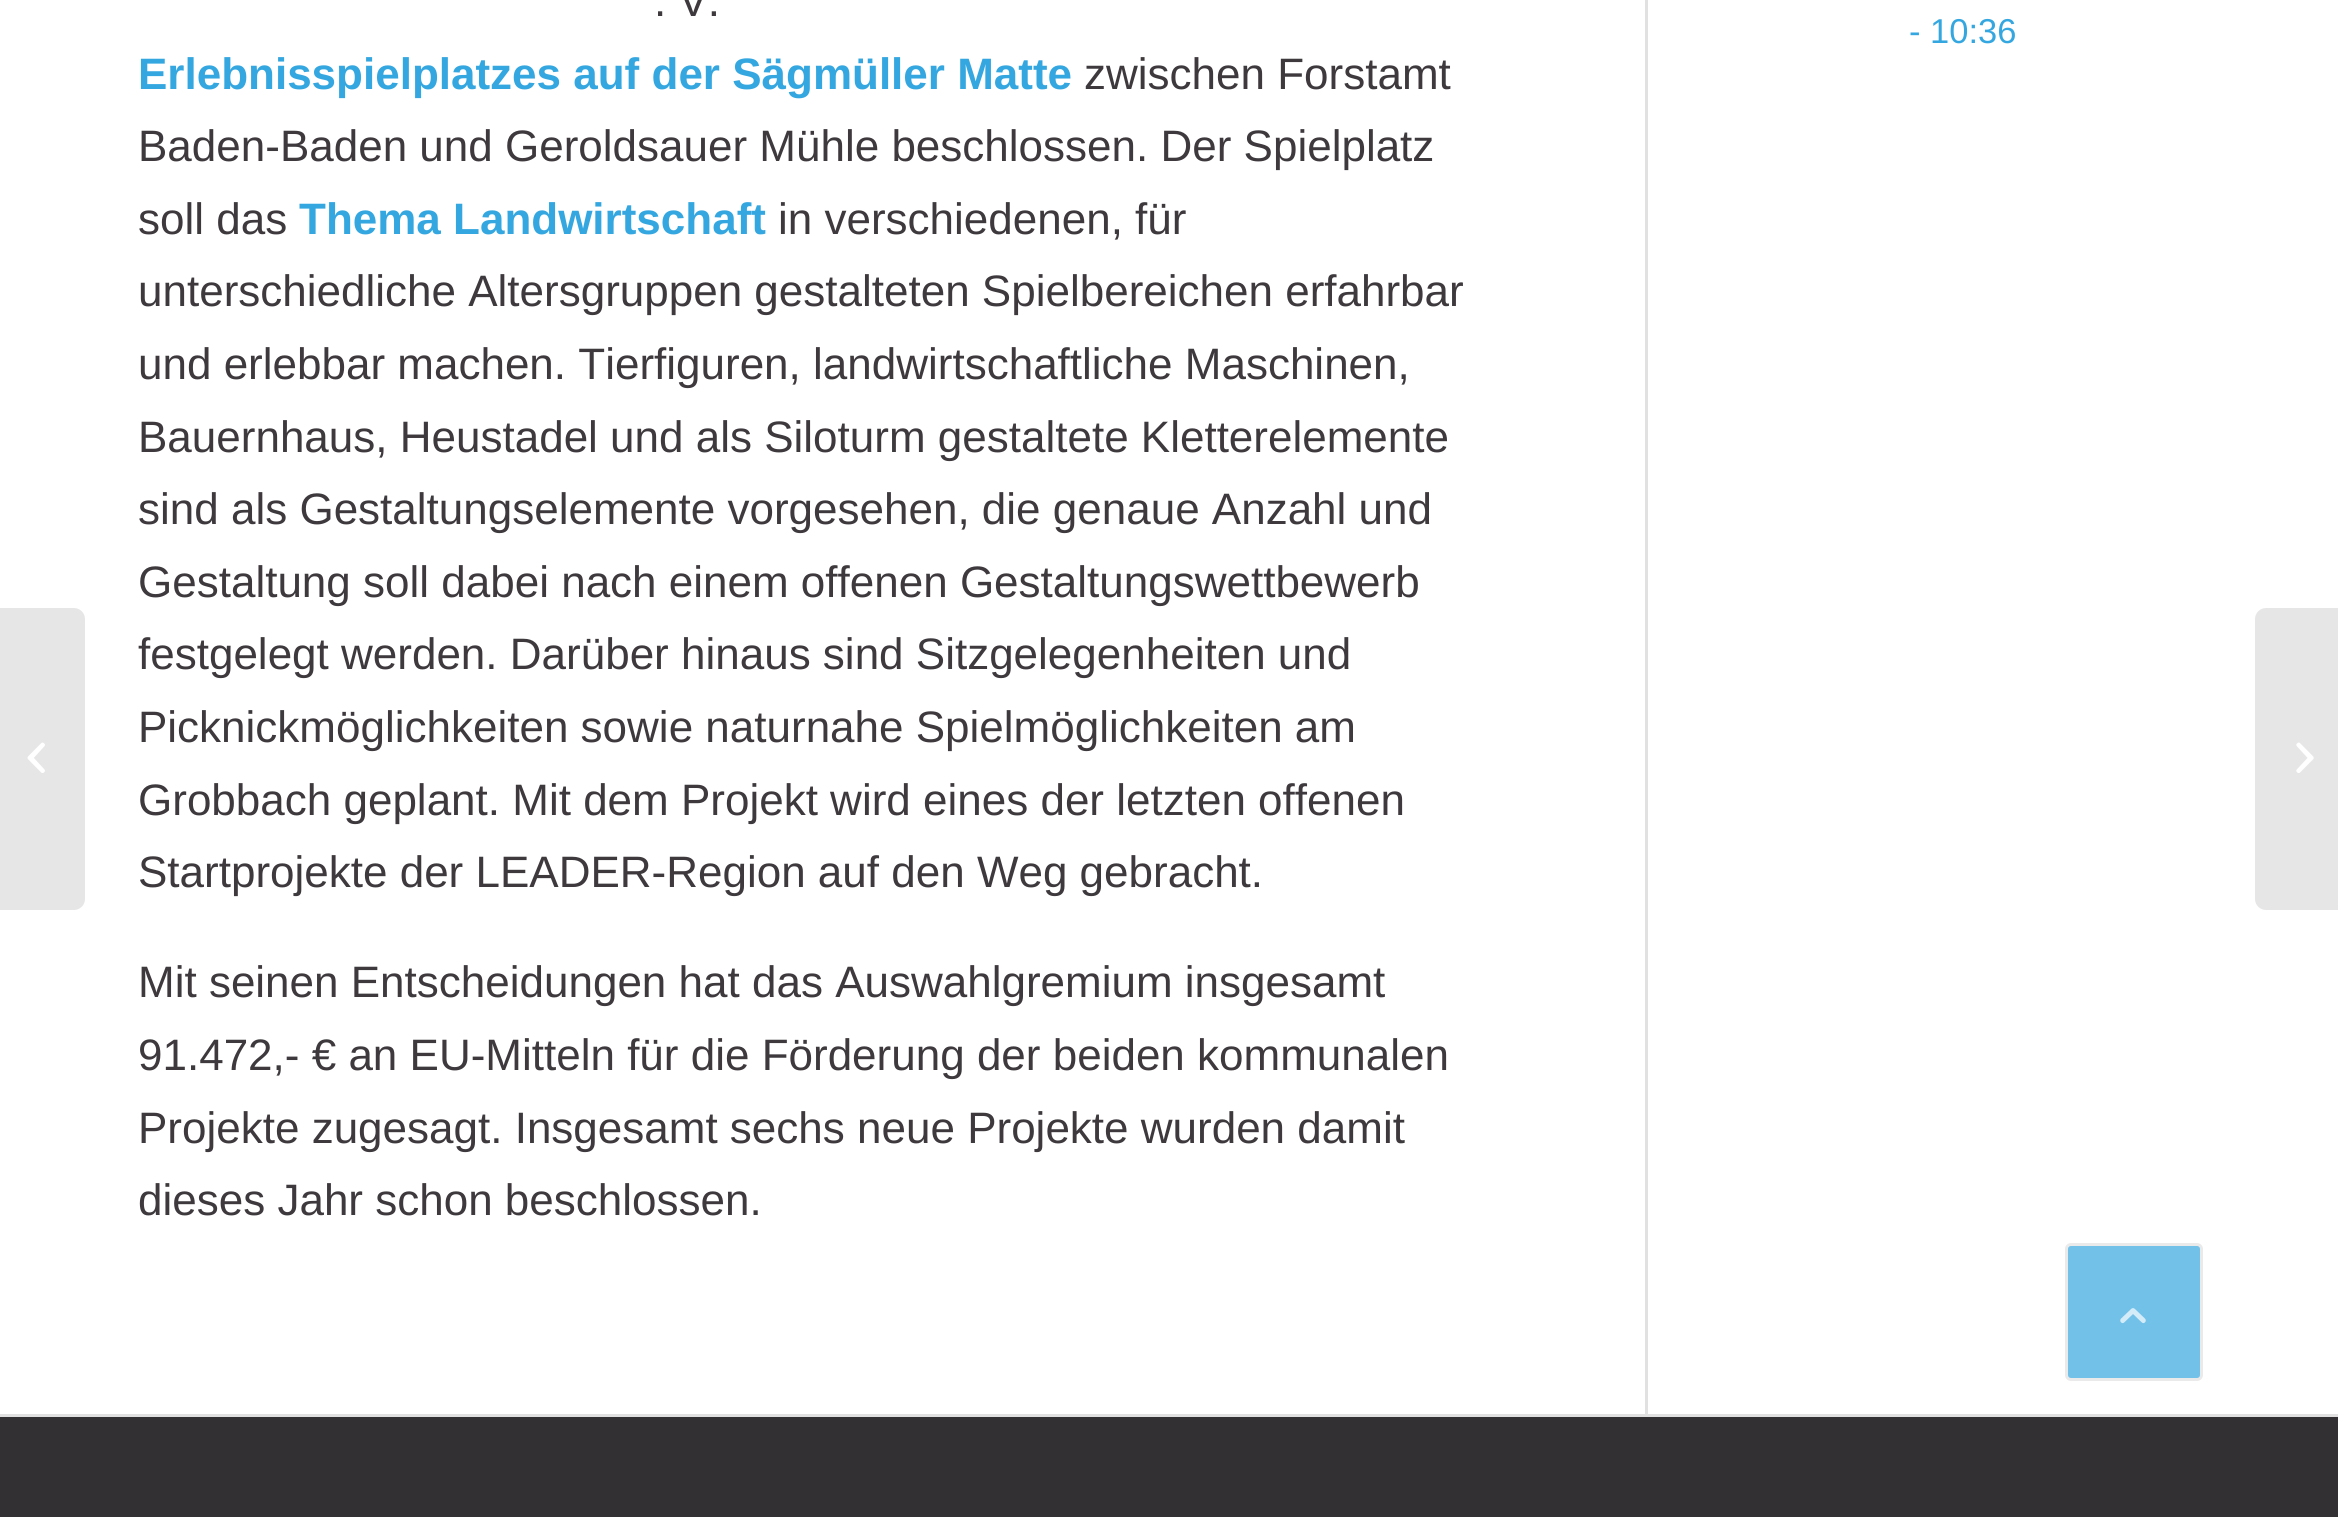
#include <cairo.h>
#include <math.h>
#include <stddef.h>

static cairo_t *c;
static void C(unsigned color){cairo_set_source_rgb(c, (color >> 16) / 255.0, (color >> 8 & 255) / 255.0, (color & 255) / 255.0);}
static void F(const char *family, double size, int italic, int bold){cairo_select_font_face(c, family, italic ? CAIRO_FONT_SLANT_ITALIC : CAIRO_FONT_SLANT_NORMAL,bold ? CAIRO_FONT_WEIGHT_BOLD : CAIRO_FONT_WEIGHT_NORMAL);cairo_set_font_size(c, size);}
static void T(double x, double y, const char *s){cairo_move_to(c, x, y);cairo_show_text(c, s);}
static void R(double x, double y, double w, double h){cairo_rectangle(c, x, y, w, h);cairo_fill(c);}
static void Q(double x, double y, double w, double h, double r){cairo_new_sub_path(c);cairo_arc(c, x + w - r, y + h - r, r, 0, M_PI / 2);cairo_arc(c, x + r, y + h - r, r, M_PI / 2, M_PI);cairo_arc(c, x + r, y + r, r, M_PI, 1.5 * M_PI);cairo_arc(c, x + w - r, y + r, r, 1.5 * M_PI, 2 * M_PI);cairo_close_path(c);}
static void I(const char *path, double x, double y, double w, double h){cairo_surface_t *image = cairo_image_surface_create_from_png(path);cairo_save(c);cairo_set_source_surface(c, image, x, y);cairo_rectangle(c, x, y, w, h);cairo_fill(c);cairo_restore(c);cairo_surface_destroy(image);}
int main(void) {
cairo_surface_t *surface = cairo_image_surface_create(CAIRO_FORMAT_RGB24, 2338, 1517);
c = cairo_create(surface);
cairo_font_options_t *options = cairo_font_options_create();
cairo_font_options_set_hint_metrics(options, CAIRO_HINT_METRICS_OFF);
cairo_font_options_set_hint_style(options, CAIRO_HINT_STYLE_NONE);
cairo_set_font_options(c, options);
cairo_set_miter_limit(c, 4);
C(0xffffff);
cairo_paint(c);
C(0xe6e6e6);
cairo_new_path(c);
cairo_move_to(c,0,608);
cairo_line_to(c,74,608);
cairo_curve_to(c,80,608,85,613,85,619);
cairo_line_to(c,85,899);
cairo_curve_to(c,85,905,80,910,74,910);
cairo_line_to(c,0,910);
cairo_close_path(c);
cairo_fill(c);
I("1.png",27,742,18,31);
C(0xe1e1e1);
R(1645,0,3,1414);
F("Liberation Sans",44,0,0);
C(0x3d393d);
T(654,16,". V.");
F("Liberation Sans",44,0,1);
C(0x35a7e0);
T(138,89,"Erlebnisspielplatzes auf der Sägmüller Matte");
F("Liberation Sans",44,0,0);
C(0x3d393d);
T(1084,89,"zwischen Forstamt");
T(138,161,"Baden-Baden und Geroldsauer Mühle beschlossen. Der Spielplatz");
T(138,234,"soll das");
F("Liberation Sans",44,0,1);
C(0x35a7e0);
T(299,234,"Thema Landwirtschaft");
F("Liberation Sans",44,0,0);
C(0x3d393d);
T(778,234,"in verschiedenen, für");
T(138,306,"unterschiedliche Altersgruppen gestalteten Spielbereichen erfahrbar");
T(138,379,"und erlebbar machen. Tierfiguren, landwirtschaftliche Maschinen,");
T(138,452,"Bauernhaus, Heustadel und als Siloturm gestaltete Kletterelemente");
T(138,524,"sind als Gestaltungselemente vorgesehen, die genaue Anzahl und");
T(138,597,"Gestaltung soll dabei nach einem offenen Gestaltungswettbewerb");
T(138,669,"festgelegt werden. Darüber hinaus sind Sitzgelegenheiten und");
T(138,742,"Picknickmöglichkeiten sowie naturnahe Spielmöglichkeiten am");
T(138,815,"Grobbach geplant. Mit dem Projekt wird eines der letzten offenen");
T(138,887,"Startprojekte der LEADER-Region auf den Weg gebracht.");
T(138,997,"Mit seinen Entscheidungen hat das Auswahlgremium insgesamt");
T(138,1070,"91.472,- € an EU-Mitteln für die Förderung der beiden kommunalen");
T(138,1143,"Projekte zugesagt. Insgesamt sechs neue Projekte wurden damit");
T(138,1215,"dieses Jahr schon beschlossen.");
F("Liberation Sans",34.5,0,0);
C(0x35a7e0);
T(1909,43,"- 10:36");
C(0x333033);
R(0,1417,2338,100);
C(0xe1e1e1);
R(0,1414,2338,3);
C(0xe6e6e6);
cairo_new_path(c);
cairo_move_to(c,2266,608);
cairo_line_to(c,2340,608);
cairo_line_to(c,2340,910);
cairo_line_to(c,2266,910);
cairo_curve_to(c,2260,910,2255,905,2255,899);
cairo_line_to(c,2255,619);
cairo_curve_to(c,2255,613,2260,608,2266,608);
cairo_close_path(c);
cairo_fill(c);
I("2.png",2296,742,18,31);
C(0x72c1e9);
Q(2066.5,1244.5,135,135,4.5);
cairo_fill_preserve(c);
C(0xeaeaea);
cairo_set_line_width(c,3);
cairo_stroke(c);
I("3.png",2120,1308,26,16);
cairo_surface_write_to_png(surface, "o.png");
cairo_font_options_destroy(options);
cairo_destroy(c);
cairo_surface_destroy(surface);
return 0;
}
